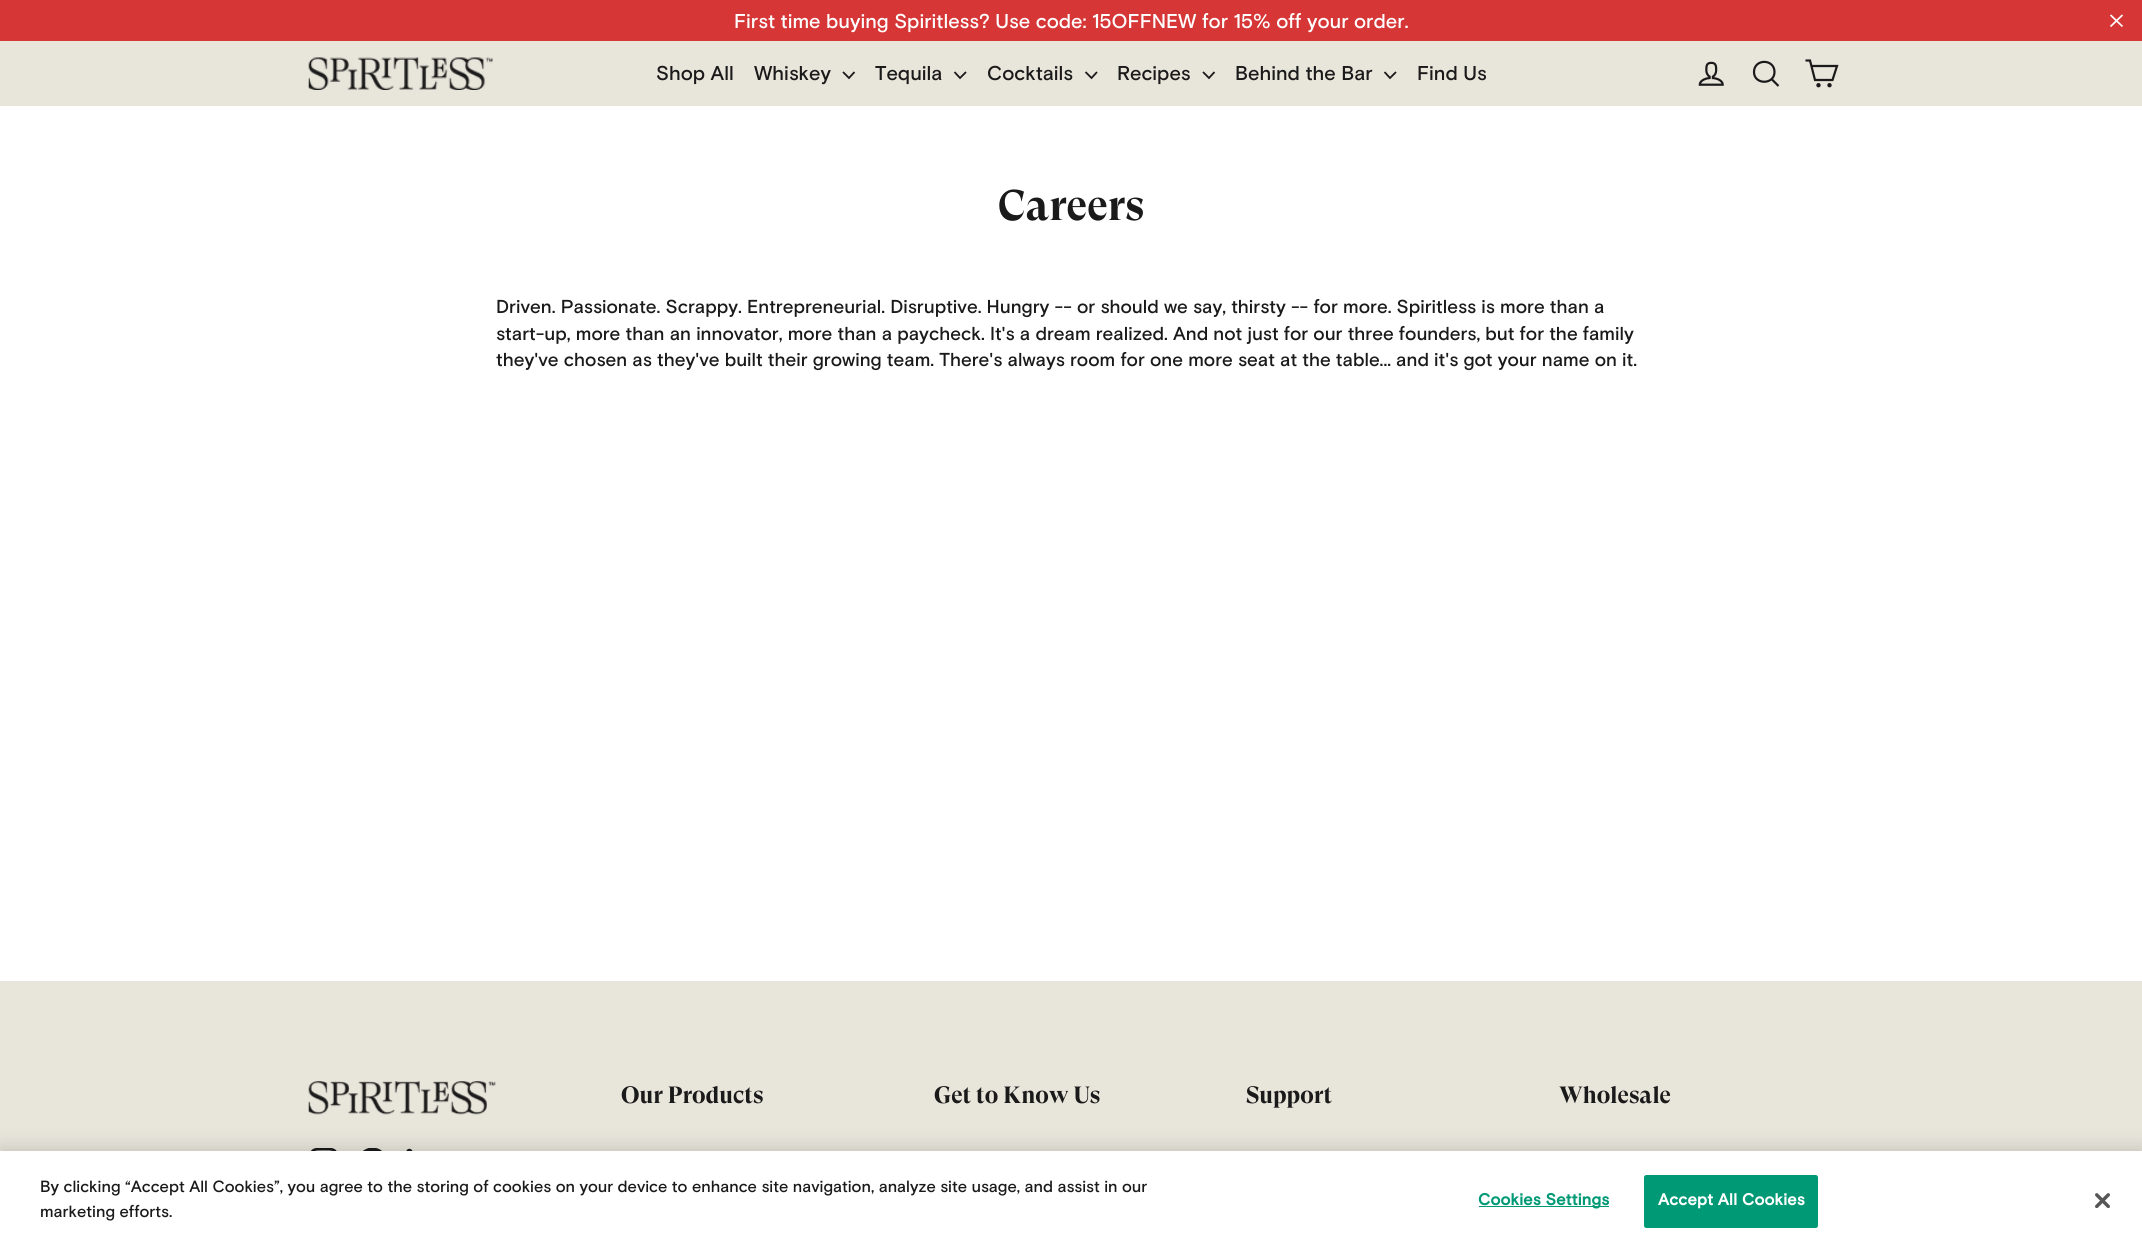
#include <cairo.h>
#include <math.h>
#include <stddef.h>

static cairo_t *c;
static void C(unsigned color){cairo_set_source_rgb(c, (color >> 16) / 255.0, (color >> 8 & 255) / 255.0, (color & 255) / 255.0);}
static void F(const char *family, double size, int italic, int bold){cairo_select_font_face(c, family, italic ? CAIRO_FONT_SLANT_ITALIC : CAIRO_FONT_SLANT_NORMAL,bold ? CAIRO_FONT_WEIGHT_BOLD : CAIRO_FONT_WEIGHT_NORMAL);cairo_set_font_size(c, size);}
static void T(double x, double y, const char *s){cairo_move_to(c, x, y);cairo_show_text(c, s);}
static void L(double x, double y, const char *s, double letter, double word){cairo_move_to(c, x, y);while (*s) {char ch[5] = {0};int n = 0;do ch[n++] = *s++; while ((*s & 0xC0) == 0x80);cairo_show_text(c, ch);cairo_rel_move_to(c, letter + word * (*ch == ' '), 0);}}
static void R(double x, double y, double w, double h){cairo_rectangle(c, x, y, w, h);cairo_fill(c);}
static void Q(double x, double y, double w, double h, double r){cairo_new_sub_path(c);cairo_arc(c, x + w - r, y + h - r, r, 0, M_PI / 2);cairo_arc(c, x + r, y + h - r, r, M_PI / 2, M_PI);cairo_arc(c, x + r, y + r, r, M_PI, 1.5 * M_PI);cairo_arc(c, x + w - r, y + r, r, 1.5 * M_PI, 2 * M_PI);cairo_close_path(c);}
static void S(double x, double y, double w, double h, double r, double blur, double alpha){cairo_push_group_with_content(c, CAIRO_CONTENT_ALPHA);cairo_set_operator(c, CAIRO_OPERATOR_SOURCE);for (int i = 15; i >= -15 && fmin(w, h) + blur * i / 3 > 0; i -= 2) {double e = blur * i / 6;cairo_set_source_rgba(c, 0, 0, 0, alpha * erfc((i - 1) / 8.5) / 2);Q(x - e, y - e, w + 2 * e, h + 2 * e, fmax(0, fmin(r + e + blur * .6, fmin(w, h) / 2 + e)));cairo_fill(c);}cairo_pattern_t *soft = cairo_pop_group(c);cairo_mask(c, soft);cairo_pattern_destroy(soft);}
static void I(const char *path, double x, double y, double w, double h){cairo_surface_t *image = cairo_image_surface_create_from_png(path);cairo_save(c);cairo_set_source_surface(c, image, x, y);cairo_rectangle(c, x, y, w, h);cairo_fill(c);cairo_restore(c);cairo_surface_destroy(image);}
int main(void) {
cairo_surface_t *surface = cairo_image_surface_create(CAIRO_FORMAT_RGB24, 2142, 1253);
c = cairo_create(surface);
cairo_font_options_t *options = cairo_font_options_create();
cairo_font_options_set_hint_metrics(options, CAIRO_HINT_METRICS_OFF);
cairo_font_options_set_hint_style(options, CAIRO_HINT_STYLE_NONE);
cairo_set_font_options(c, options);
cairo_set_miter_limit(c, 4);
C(0xffffff);
cairo_paint(c);
C(0xd63636);
R(0,0,2142,41);
F("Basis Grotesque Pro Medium",20,0,0);
C(0xffffff);
T(734,28,"First time buying Spiritless? Use code: 15OFFNEW for 15% off your order.");
cairo_new_path(c);
cairo_move_to(c,2110.5,15);
cairo_line_to(c,2122.5,26.5);
cairo_move_to(c,2122.5,15);
cairo_line_to(c,2110.5,26.5);
cairo_set_line_width(c,1.7);
cairo_stroke(c);
C(0xe8e5db);
R(0,41,2142,65);
I("1.png",308,57,185,33);
C(0x1a1a1a);
T(656,80,"Shop All");
T(754,80,"Whiskey");
cairo_new_path(c);
cairo_move_to(c,843,72);
cairo_line_to(c,849,78);
cairo_line_to(c,854.5,72);
cairo_set_line_width(c,1.8);
cairo_stroke(c);
T(875,80,"Tequila");
cairo_new_path(c);
cairo_move_to(c,954.5,72);
cairo_line_to(c,960,78);
cairo_line_to(c,966,72);
cairo_stroke(c);
T(987,80,"Cocktails");
cairo_new_path(c);
cairo_move_to(c,1085.5,72);
cairo_line_to(c,1091.5,78);
cairo_line_to(c,1097,72);
cairo_stroke(c);
T(1117,80,"Recipes");
cairo_new_path(c);
cairo_move_to(c,1203,72);
cairo_line_to(c,1209,78);
cairo_line_to(c,1214.5,72);
cairo_stroke(c);
T(1235,80,"Behind the Bar");
cairo_new_path(c);
cairo_move_to(c,1384.5,72);
cairo_line_to(c,1390,78);
cairo_line_to(c,1396,72);
cairo_stroke(c);
T(1417,80,"Find Us");
I("2.png",1698,61,26,25);
cairo_new_path(c);
cairo_move_to(c,1774.5,72);
cairo_curve_to(c,1774.5,85,1754,85,1754,72);
cairo_curve_to(c,1754,58.5,1774.5,58.5,1774.5,72);
cairo_close_path(c);
cairo_move_to(c,1778.5,86);
cairo_line_to(c,1771.5,79);
cairo_set_line_width(c,2.2);
cairo_stroke(c);
cairo_new_path(c);
cairo_move_to(c,1811.5,66);
cairo_line_to(c,1837,66);
cairo_line_to(c,1832.5,80);
cairo_line_to(c,1815,80);
cairo_line_to(c,1810,60.5);
cairo_line_to(c,1805.5,60.5);
cairo_stroke(c);
cairo_arc(c,1818.5,85.2,1.1,0,2 * M_PI);
cairo_stroke(c);
cairo_arc(c,1829.5,85.2,1.1,0,2 * M_PI);
cairo_stroke(c);
F("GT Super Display",42.5,0,1);
T(998,220,"Careers");
F("Basis Grotesque Pro Medium",18.75,0,0);
T(496,313,"Driven. Passionate. Scrappy. Entrepreneurial. Disruptive. Hungry -- or should we say, thirsty -- for more. Spiritless is more than a");
T(496,340,"start-up, more than an innovator, more than a paycheck. It's a dream realized. And not just for our three founders, but for the family");
T(496,366,"they've chosen as they've built their growing team. There's always room for one more seat at the table... and it's got your name on it.");
C(0xe8e5db);
R(0,981,2142,170);
I("3.png",308,1081,188,34);
I("4.png",311,1148,26,3);
I("5.png",363,1148,19,3);
I("6.png",406,1148,7,3);
F("GT Super Display",23.5,0,1);
C(0x1a1a1a);
T(621,1103,"Our Products");
T(934,1103,"Get to Know Us");
T(1246,1103,"Support");
T(1559,1103,"Wholesale");
C(0x000000);
S(0,1151,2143,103,0,11,.2);
C(0xffffff);
R(0,1151,2142,102);
F("Basis Grotesque Pro Medium",16.25,0,0);
C(0x1a1a1a);
T(40,1192,"By clicking “Accept All Cookies”, you agree to the storing of cookies on your device to enhance site navigation, analyze site usage, and assist in our");
T(40,1217,"marketing efforts.");
C(0x009975);
R(1479,1206,130,1);
F("Basis Grotesque Pro",16.25,0,1);
L(1478,1205,"Cookies Settings",.2,0);
Q(1644.5,1175.5,173,52,2);
cairo_fill_preserve(c);
cairo_set_line_width(c,1);
cairo_stroke(c);
C(0xffffff);
L(1658,1205,"Accept All Cookies",.2,0);
I("7.png",2095,1193,15,15);
cairo_surface_write_to_png(surface, "o.png");
cairo_font_options_destroy(options);
cairo_destroy(c);
cairo_surface_destroy(surface);
return 0;
}
